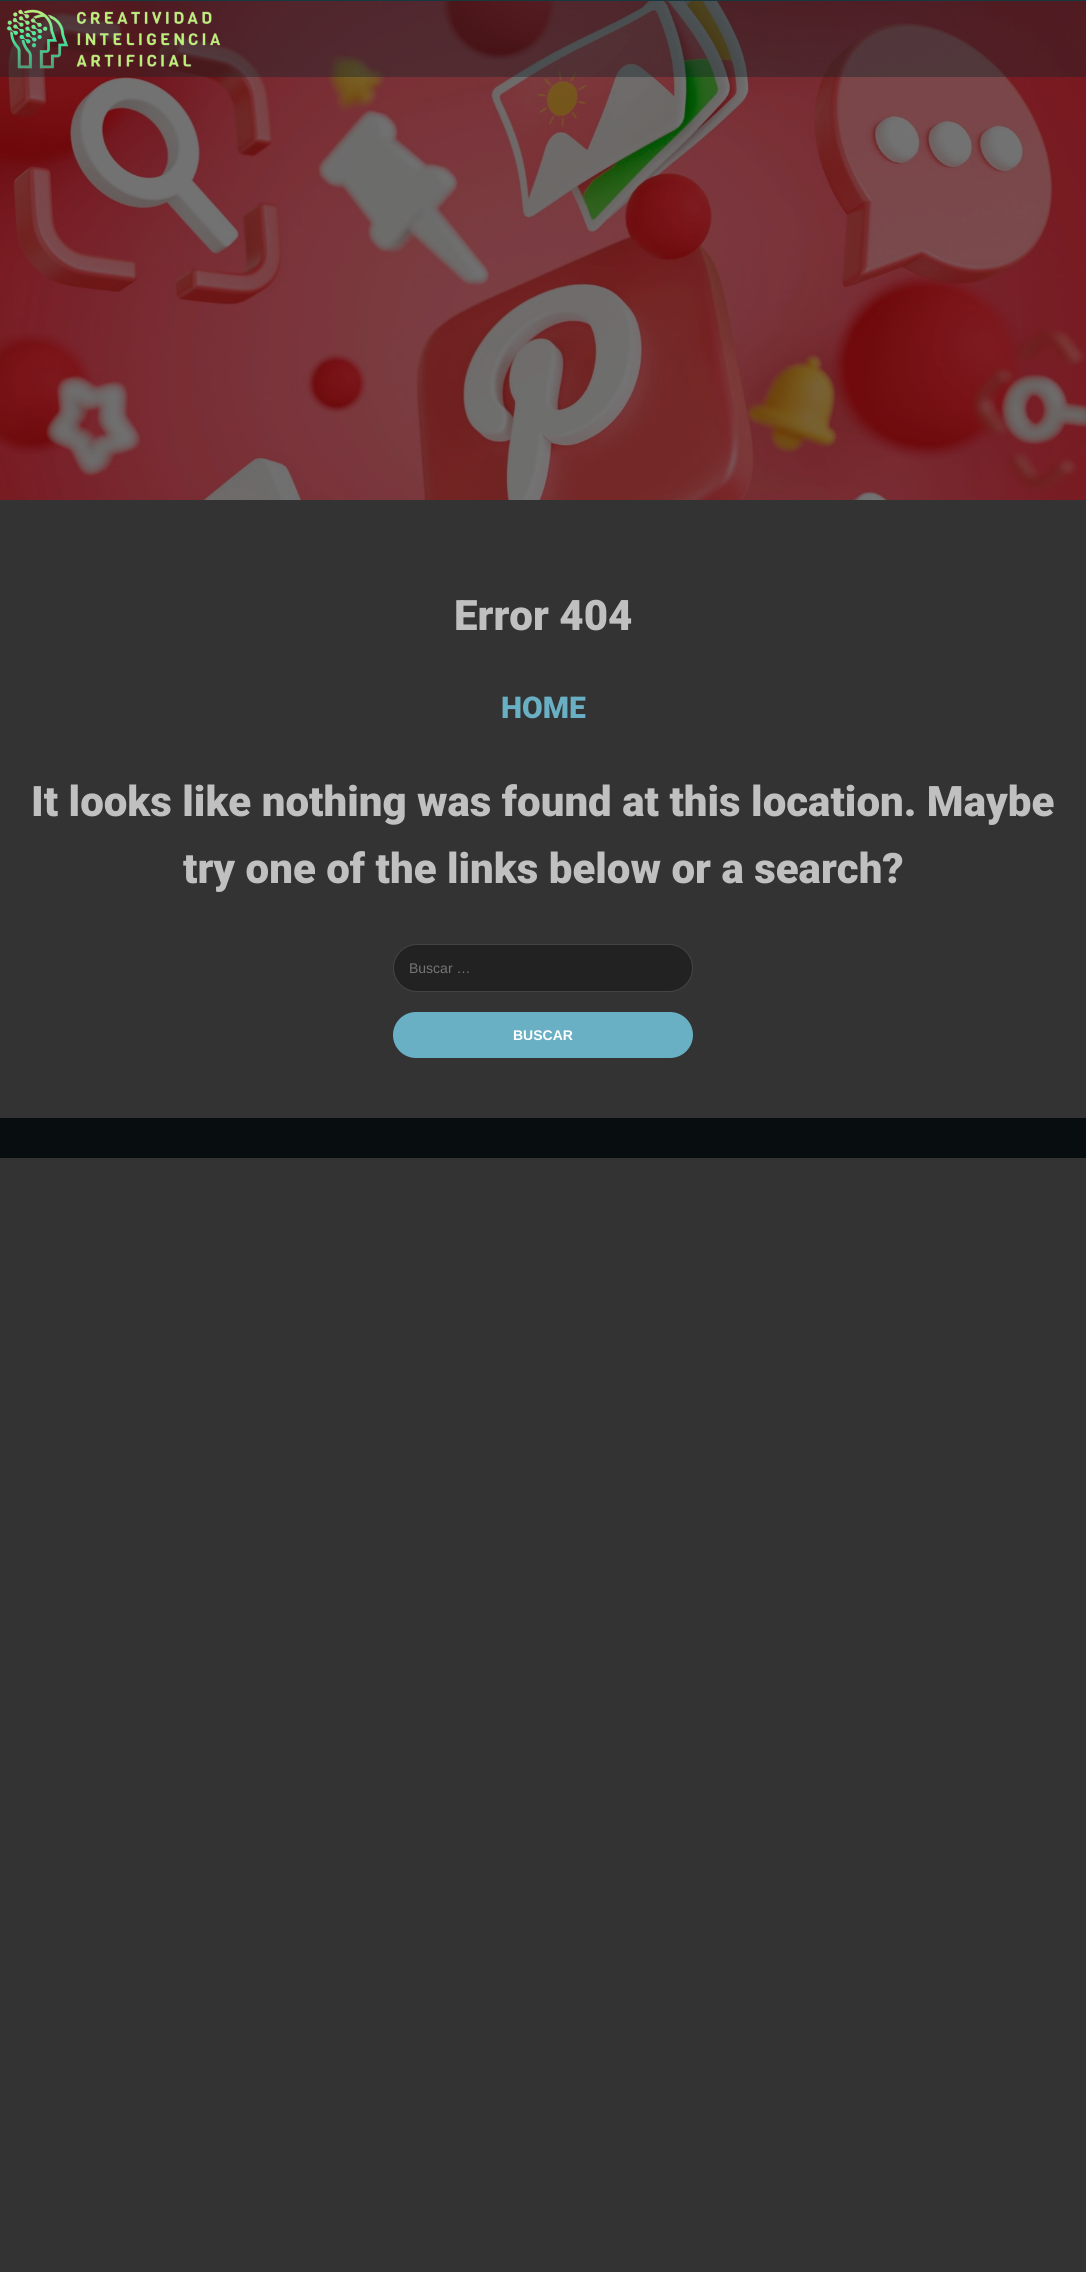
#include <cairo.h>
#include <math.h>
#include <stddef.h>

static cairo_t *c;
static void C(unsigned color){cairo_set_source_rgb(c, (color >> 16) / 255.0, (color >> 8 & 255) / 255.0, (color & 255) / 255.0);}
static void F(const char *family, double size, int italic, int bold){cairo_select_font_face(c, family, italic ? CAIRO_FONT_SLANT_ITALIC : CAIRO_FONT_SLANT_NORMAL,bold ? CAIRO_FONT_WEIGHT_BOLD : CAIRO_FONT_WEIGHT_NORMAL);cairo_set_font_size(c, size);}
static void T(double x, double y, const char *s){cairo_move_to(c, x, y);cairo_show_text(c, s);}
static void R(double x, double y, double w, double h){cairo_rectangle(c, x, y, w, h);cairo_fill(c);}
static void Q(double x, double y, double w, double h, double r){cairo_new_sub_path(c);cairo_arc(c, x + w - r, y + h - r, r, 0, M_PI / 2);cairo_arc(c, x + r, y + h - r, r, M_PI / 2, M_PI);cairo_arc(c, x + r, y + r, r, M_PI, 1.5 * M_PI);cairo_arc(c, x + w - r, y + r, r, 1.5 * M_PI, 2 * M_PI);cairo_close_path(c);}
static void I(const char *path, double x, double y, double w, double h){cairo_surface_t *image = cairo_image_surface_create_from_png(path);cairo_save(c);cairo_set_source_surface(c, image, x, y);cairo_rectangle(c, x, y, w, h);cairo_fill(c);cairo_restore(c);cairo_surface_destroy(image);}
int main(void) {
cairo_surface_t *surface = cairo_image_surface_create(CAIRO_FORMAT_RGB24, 1086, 2272);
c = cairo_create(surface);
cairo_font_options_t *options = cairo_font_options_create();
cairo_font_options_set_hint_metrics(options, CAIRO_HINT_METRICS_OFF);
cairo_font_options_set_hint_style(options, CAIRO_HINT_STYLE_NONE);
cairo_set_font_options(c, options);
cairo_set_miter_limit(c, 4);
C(0x333333);
cairo_paint(c);
I("2.png",0,1,1086,499);
cairo_set_source_rgba(c,0.086,0.141,0.157,0.4);
R(0,1,1086,76);
C(0x16383f);
R(0,0,1086,1);
I("1.png",6,9,215,60);
F("Roboto Black",42,0,0);
C(0xc0c0c0);
T(454,630,"Error 404");
F("Roboto Black",30,0,0);
C(0x6ab0c4);
T(501,718,"HOME");
F("Roboto Black",42,0,0);
C(0xc0c0c0);
T(31,816,"It looks like nothing was found at this location. Maybe");
T(183,883,"try one of the links below or a search?");
C(0x222222);
Q(393.5,944.5,299,47,23.5);
cairo_fill_preserve(c);
C(0x444444);
cairo_set_line_width(c,1);
cairo_stroke(c);
F("Liberation Sans",14,0,0);
C(0x757575);
T(409,973,"Buscar …");
C(0x6ab0c4);
Q(393,1012,300,46,23);
cairo_fill(c);
F("Liberation Sans",14,0,1);
C(0xffffff);
T(513,1040,"BUSCAR");
C(0x080d0f);
R(0,1118,1086,40);
cairo_surface_write_to_png(surface, "o.png");
cairo_font_options_destroy(options);
cairo_destroy(c);
cairo_surface_destroy(surface);
return 0;
}
